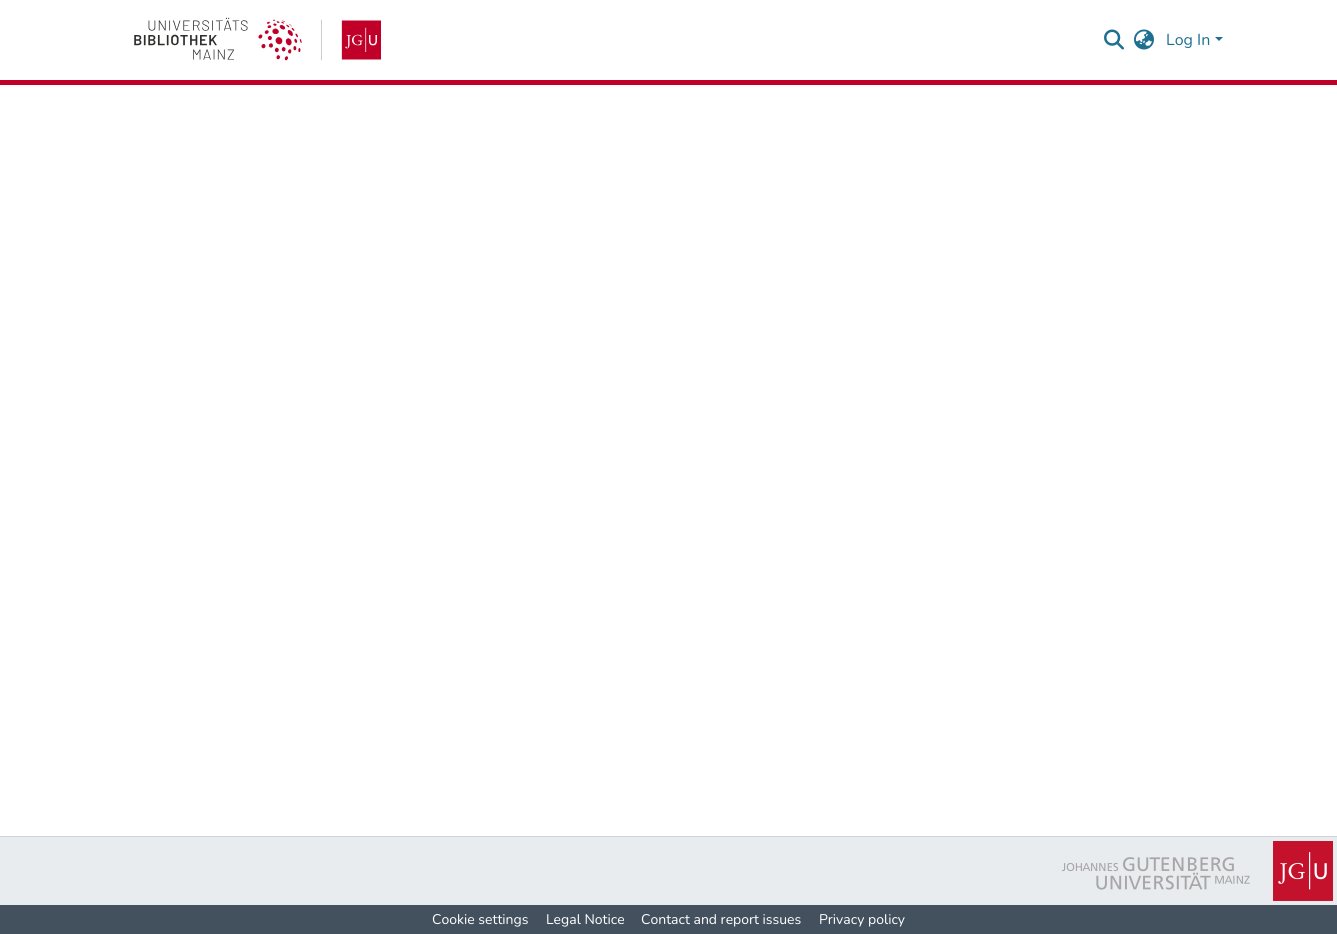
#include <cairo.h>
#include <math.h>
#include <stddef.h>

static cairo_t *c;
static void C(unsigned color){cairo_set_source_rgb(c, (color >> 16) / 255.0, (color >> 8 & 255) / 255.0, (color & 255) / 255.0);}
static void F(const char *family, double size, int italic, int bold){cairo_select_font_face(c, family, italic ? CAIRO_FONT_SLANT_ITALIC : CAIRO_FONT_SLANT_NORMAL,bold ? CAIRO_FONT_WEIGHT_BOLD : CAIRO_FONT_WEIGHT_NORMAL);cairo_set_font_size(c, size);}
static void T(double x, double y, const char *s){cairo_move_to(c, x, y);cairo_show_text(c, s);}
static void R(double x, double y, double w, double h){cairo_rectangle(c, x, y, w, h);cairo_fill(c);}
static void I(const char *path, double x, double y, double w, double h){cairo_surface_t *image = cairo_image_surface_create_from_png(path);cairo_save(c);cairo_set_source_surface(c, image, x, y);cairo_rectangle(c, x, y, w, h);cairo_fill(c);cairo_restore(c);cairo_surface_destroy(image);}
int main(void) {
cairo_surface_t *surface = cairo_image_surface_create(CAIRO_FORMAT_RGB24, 1337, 934);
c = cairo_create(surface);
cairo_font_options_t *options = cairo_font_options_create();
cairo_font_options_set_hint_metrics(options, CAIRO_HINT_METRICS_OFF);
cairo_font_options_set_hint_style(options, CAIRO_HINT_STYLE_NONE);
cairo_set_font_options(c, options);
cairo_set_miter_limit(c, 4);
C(0xffffff);
cairo_paint(c);
C(0xc1002a);
R(0,80,1337,5);
I("1.png",134,17,247,44);
I("2.png",1104,29,20,21);
I("3.png",1134,29,20,21);
F("Nunito ExtraLight",16,0,0);
C(0x1e6f90);
T(1166,45,"Log In");
cairo_new_path(c);
cairo_move_to(c,1215,37);
cairo_line_to(c,1223,37);
cairo_line_to(c,1219,41);
cairo_close_path(c);
cairo_fill(c);
C(0x43515f);
R(0,905,1337,29);
C(0xced4da);
R(0,836,1337,1);
C(0xe9ecef);
R(0,837,1337,68);
I("4.png",1062,841,271,60);
F("Nunito ExtraLight",14,0,0);
C(0xffffff);
T(432,924,"Cookie settings");
C(0x495057);
R(537,909,1,21);
C(0xffffff);
T(546,924,"Legal Notice");
C(0x495057);
R(632,909,1,21);
C(0xffffff);
T(641,924,"Contact and report issues");
C(0x495057);
R(810,909,1,21);
C(0xffffff);
T(819,924,"Privacy policy");
cairo_surface_write_to_png(surface, "o.png");
cairo_font_options_destroy(options);
cairo_destroy(c);
cairo_surface_destroy(surface);
return 0;
}
